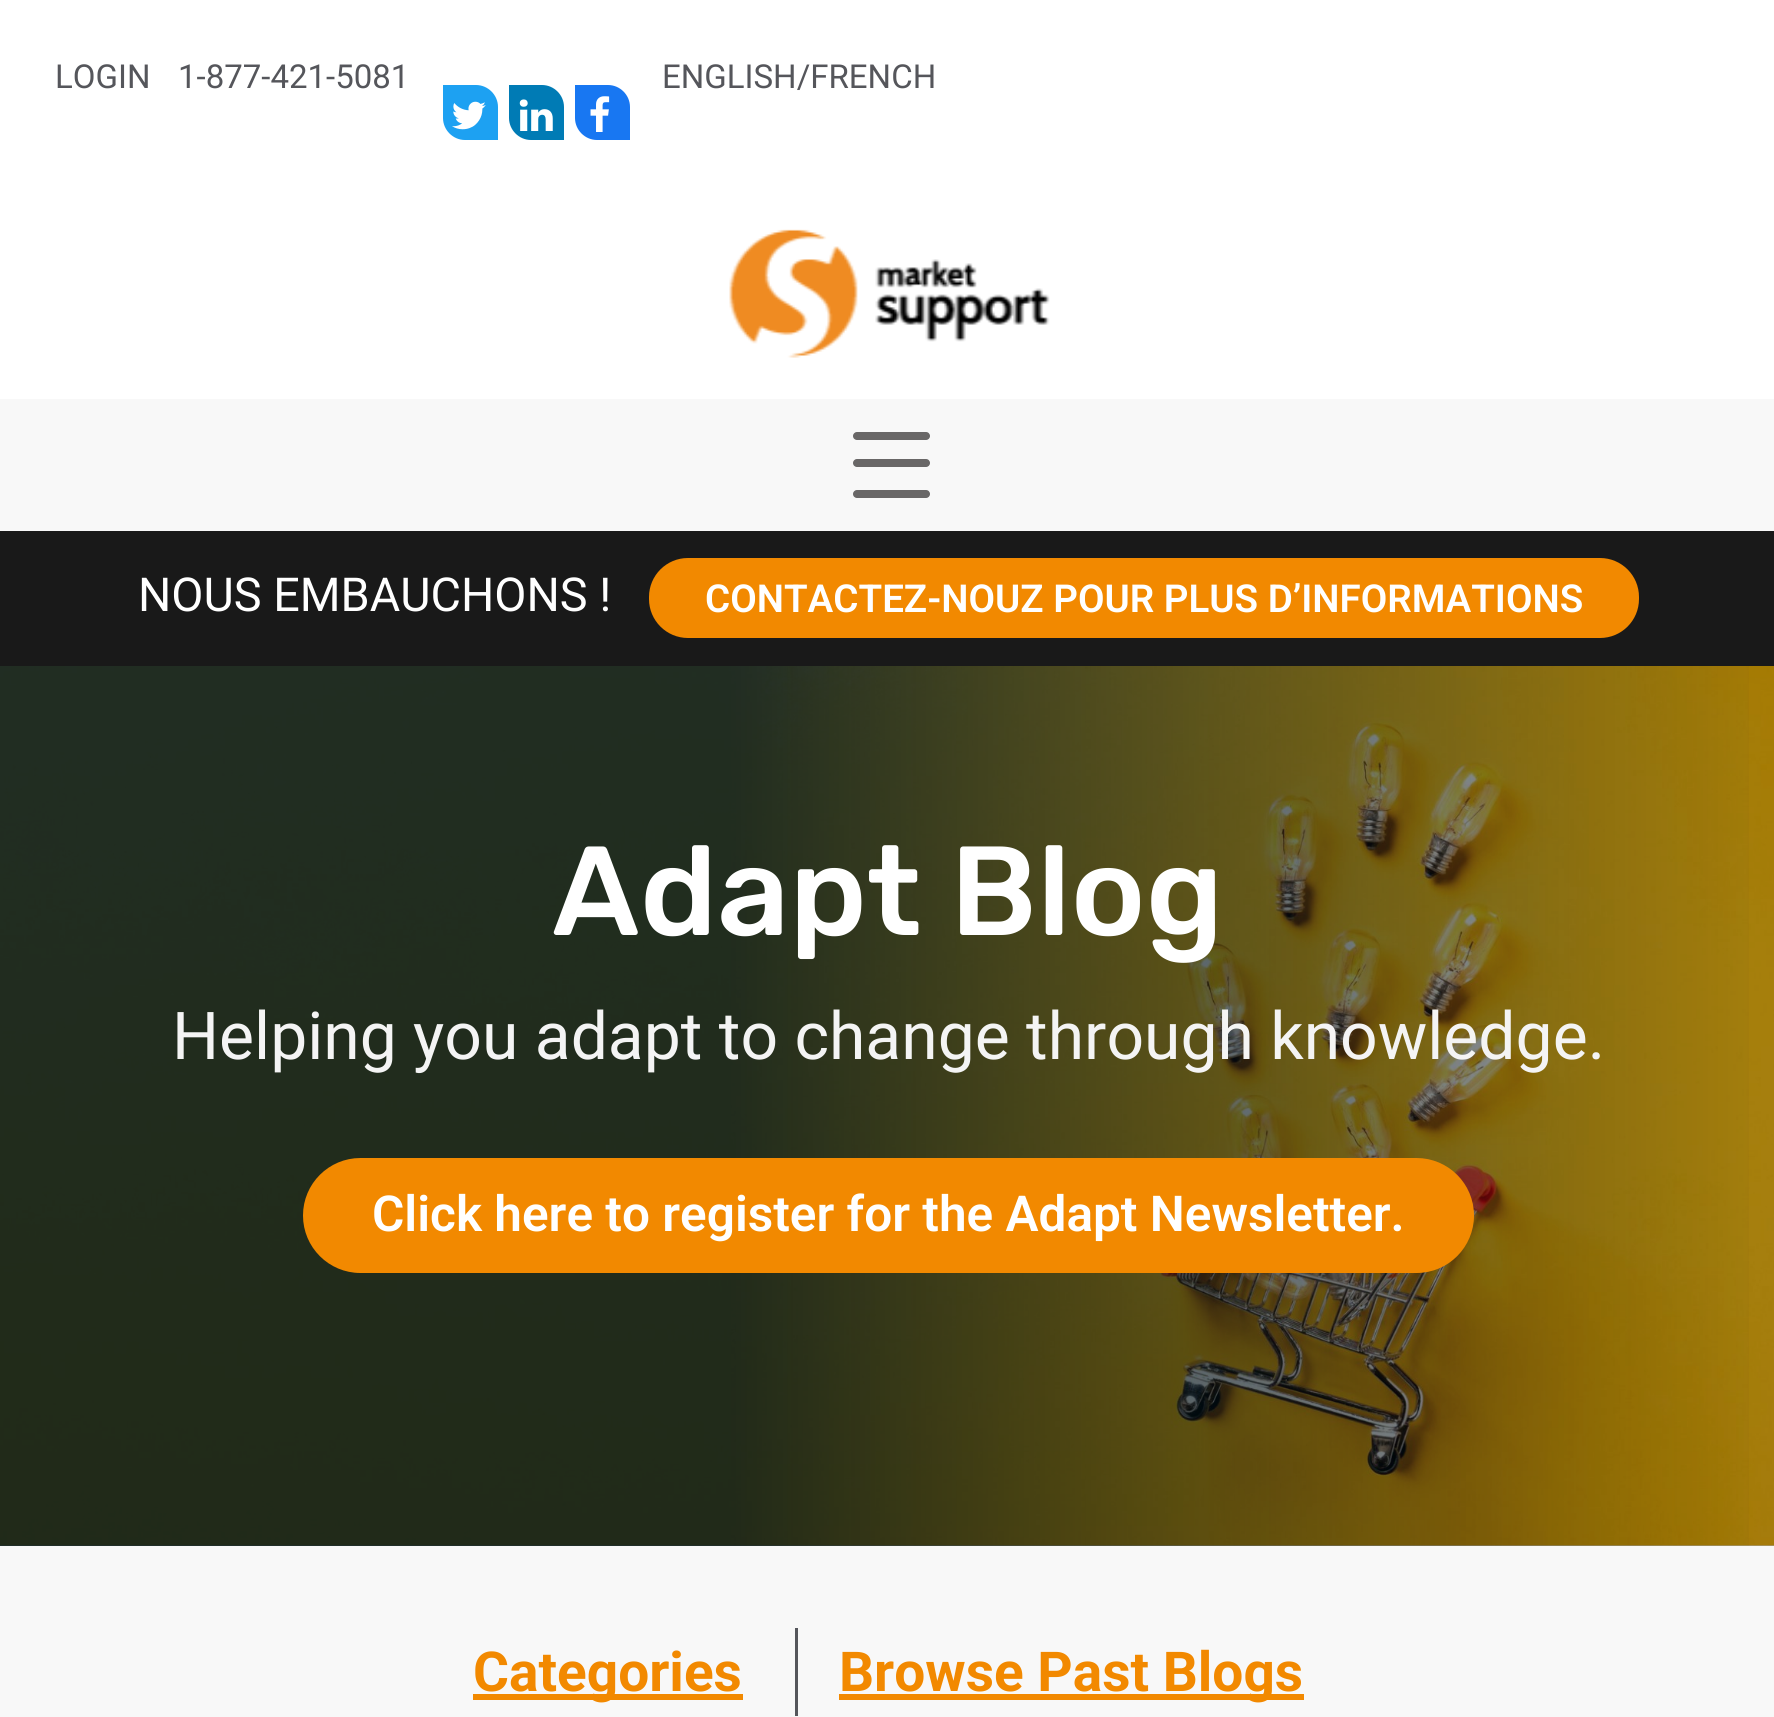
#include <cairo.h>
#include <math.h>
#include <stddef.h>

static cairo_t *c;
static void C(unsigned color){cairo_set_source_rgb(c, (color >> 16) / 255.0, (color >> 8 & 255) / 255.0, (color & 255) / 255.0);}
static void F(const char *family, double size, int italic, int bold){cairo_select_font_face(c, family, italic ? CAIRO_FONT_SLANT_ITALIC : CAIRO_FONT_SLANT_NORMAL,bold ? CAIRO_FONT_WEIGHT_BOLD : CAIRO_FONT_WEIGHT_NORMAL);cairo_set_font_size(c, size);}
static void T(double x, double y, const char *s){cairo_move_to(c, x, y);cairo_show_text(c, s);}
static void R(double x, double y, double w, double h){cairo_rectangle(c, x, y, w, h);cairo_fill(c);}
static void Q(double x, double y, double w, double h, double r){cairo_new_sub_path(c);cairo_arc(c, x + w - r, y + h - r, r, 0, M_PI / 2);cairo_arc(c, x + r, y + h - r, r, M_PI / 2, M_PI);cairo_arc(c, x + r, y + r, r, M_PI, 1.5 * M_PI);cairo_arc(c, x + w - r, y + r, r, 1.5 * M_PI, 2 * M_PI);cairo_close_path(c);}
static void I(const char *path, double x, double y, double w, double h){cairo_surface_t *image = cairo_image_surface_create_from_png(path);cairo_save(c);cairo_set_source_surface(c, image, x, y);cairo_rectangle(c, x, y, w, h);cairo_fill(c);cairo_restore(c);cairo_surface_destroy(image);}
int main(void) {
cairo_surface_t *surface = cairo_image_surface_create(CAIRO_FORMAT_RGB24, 1774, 1717);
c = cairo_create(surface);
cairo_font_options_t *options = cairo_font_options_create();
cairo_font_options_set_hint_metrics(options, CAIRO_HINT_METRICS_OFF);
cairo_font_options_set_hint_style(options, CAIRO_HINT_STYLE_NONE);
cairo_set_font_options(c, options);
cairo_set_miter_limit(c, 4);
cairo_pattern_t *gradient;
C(0xa6a6a6);
cairo_paint(c);
C(0xffffff);
R(0,0,1774,399);
F("Roboto",33,0,0);
C(0x55565b);
T(55,88,"LOGIN");
T(178,88,"1-877-421-5081");
T(662,88,"ENGLISH/FRENCH");
C(0x1da1f2);
cairo_new_path(c);
cairo_move_to(c,443,85);
cairo_line_to(c,476,85);
cairo_curve_to(c,488,85,498,95,498,107);
cairo_line_to(c,498,140);
cairo_line_to(c,465,140);
cairo_curve_to(c,453,140,443,130,443,118);
cairo_close_path(c);
cairo_fill(c);
I("1.png",452,101,34,29);
C(0x007bb5);
cairo_new_path(c);
cairo_move_to(c,509,85);
cairo_line_to(c,542,85);
cairo_curve_to(c,554,85,564,95,564,107);
cairo_line_to(c,564,140);
cairo_line_to(c,531,140);
cairo_curve_to(c,519,140,509,130,509,118);
cairo_close_path(c);
cairo_fill(c);
I("2.png",519,99,34,32);
C(0x1877f2);
cairo_new_path(c);
cairo_move_to(c,575,85);
cairo_line_to(c,608,85);
cairo_curve_to(c,620,85,630,95,630,107);
cairo_line_to(c,630,140);
cairo_line_to(c,597,140);
cairo_curve_to(c,585,140,575,130,575,118);
cairo_close_path(c);
cairo_fill(c);
I("3.png",590,96,20,36);
I("4.png",729,229,321,129);
C(0xf8f8f8);
R(0,399,1774,132);
C(0x696767);
Q(853,432,77,8,4);
cairo_fill(c);
Q(853,459,77,8,4);
cairo_fill(c);
Q(853,490,77,8,4);
cairo_fill(c);
C(0x191919);
R(0,531,1774,135);
F("Roboto",46.75,0,0);
C(0xffffff);
T(138,611,"NOUS EMBAUCHONS !");
C(0xf28900);
Q(649,558,990,80,39);
cairo_fill(c);
F("Roboto SemiBold",38.5,0,0);
C(0xffffff);
T(705,612,"CONTACTEZ-NOUZ POUR PLUS D’INFORMATIONS");
I("5.png",0,666,1774,880);
gradient = cairo_pattern_create_linear(0,1106,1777,1106);
cairo_pattern_add_color_stop_rgba(gradient,.41,0,0.086,0.122,.8);
cairo_pattern_add_color_stop_rgba(gradient,1,0,0.086,0.122,0);
cairo_set_source(c,gradient);
cairo_pattern_destroy(gradient);
R(0,666,1749,880);
F("Rubik Medium",126.5,0,0);
C(0xffffff);
T(552,935,"Adapt Blog");
F("Roboto",66,0,0);
C(0xf4f4f4);
T(172,1059,"Helping you adapt to change through knowledge.");
C(0xf28900);
Q(303,1158,1171,115,57.5);
cairo_fill(c);
F("Roboto SemiBold",49.5,0,0);
C(0xffffff);
T(372,1231,"Click here to register for the Adapt Newsletter.");
C(0xf8f8f8);
R(0,1546,1774,171);
C(0xf28900);
R(473,1694,270,6);
F("Roboto",55,0,1);
T(473,1691,"Categories");
C(0x55565b);
R(795,1628,3,88);
C(0xf28900);
R(839,1694,465,6);
T(839,1691,"Browse Past Blogs");
cairo_surface_write_to_png(surface, "o.png");
cairo_font_options_destroy(options);
cairo_destroy(c);
cairo_surface_destroy(surface);
return 0;
}
